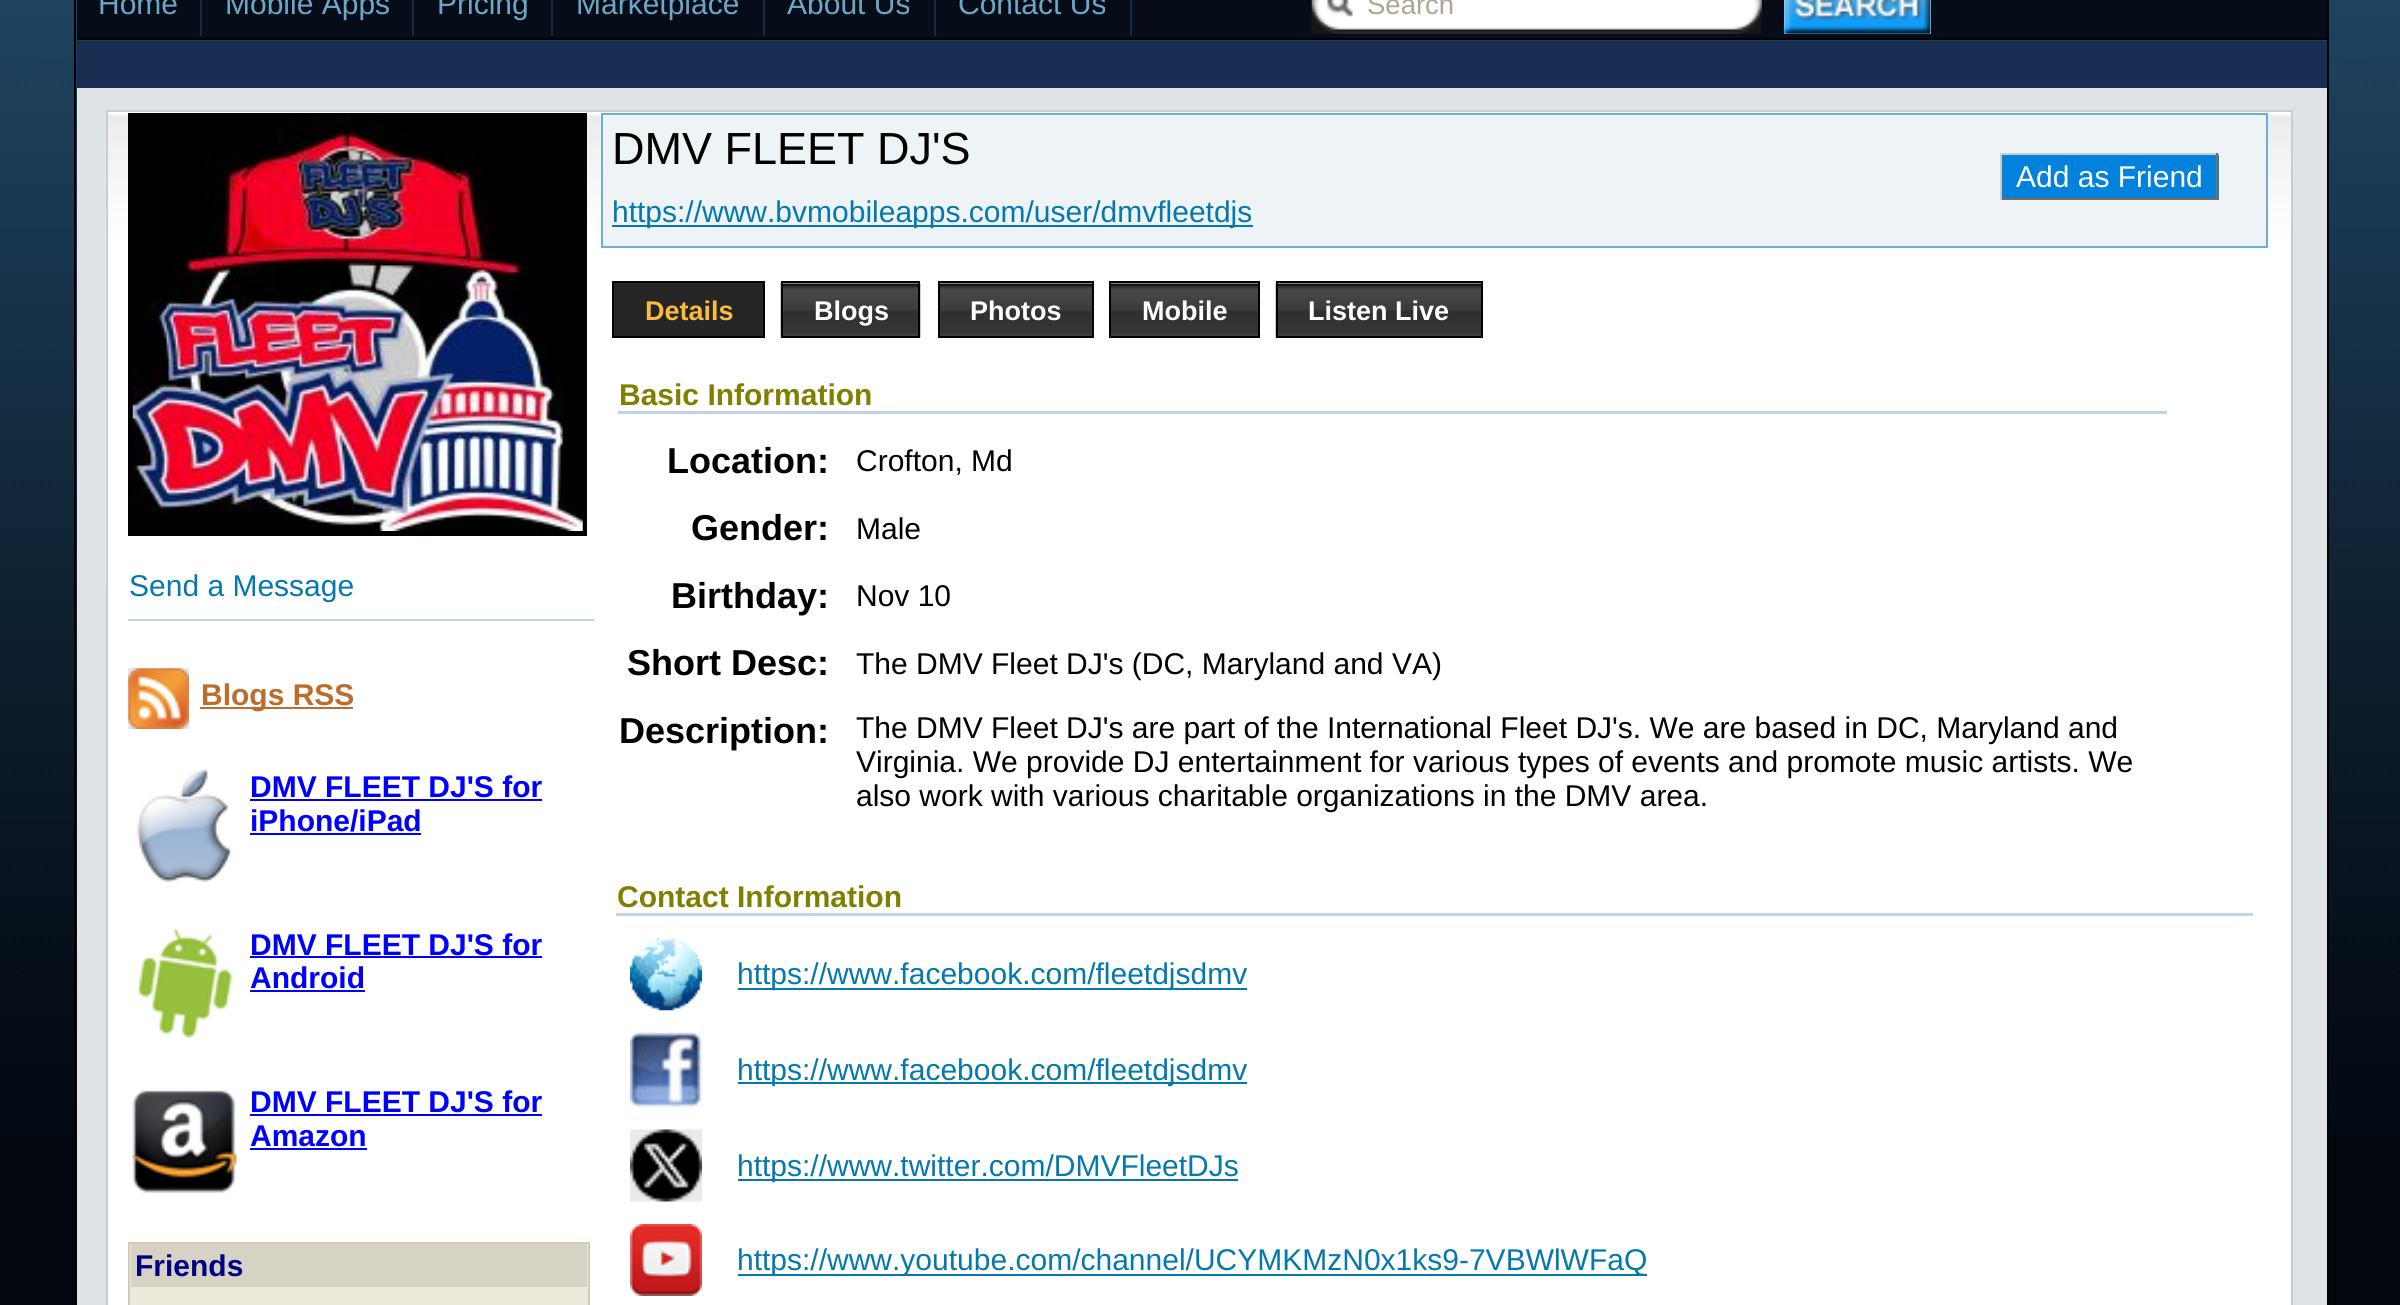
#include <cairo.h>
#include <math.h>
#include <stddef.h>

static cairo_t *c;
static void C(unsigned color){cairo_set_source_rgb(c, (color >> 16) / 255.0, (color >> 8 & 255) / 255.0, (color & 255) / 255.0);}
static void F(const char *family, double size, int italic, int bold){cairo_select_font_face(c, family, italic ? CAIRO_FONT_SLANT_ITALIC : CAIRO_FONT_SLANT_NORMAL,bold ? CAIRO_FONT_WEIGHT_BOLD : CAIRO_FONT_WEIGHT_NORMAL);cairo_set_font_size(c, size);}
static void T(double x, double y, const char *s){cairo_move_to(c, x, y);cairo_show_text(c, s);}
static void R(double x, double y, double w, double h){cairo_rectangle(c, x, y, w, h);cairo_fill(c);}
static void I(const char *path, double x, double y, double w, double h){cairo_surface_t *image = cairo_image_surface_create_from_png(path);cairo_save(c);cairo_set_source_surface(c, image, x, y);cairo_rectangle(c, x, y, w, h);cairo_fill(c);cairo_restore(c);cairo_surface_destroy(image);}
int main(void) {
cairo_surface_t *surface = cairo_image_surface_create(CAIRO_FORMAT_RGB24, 2400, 1305);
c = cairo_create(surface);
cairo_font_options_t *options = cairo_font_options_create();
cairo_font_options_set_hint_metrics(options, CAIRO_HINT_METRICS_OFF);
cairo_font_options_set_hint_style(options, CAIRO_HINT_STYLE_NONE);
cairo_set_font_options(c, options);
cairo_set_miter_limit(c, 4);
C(0x02070f);
cairo_paint(c);
I("1.png",0,0,2400,1134);
C(0x000000);
R(2327,0,2,1305);
R(74,0,2,1305);
R(77,38,2250,2);
C(0x060d18);
R(77,0,2250,38);
C(0x122b41);
R(200,0,2,36);
F("Liberation Sans",30,0,0);
C(0x6ca7c7);
T(98,14,"Home");
C(0x122b41);
R(412,0,2,36);
C(0x6ca7c7);
T(225,14,"Mobile Apps");
C(0x122b41);
R(551,0,2,36);
C(0x6ca7c7);
T(437,14,"Pricing");
C(0x122b41);
R(763,0,2,36);
C(0x6ca7c7);
T(576,14,"Marketplace");
C(0x122b41);
R(934,0,2,36);
C(0x6ca7c7);
T(787,14,"About Us");
C(0x122b41);
R(1130,0,2,36);
C(0x6ca7c7);
T(958,14,"Contact Us");
I("2.png",1311,0,451,34);
F("Liberation Sans",27.5,0,0);
C(0xaea592);
T(1367,14,"Search");
C(0xefefef);
R(1784,0,147,34);
I("3.png",1784,0,147,34);
C(0x172e52);
R(77,41,2250,47);
C(0xdfe3e6);
R(77,88,2250,1217);
C(0xffffff);
R(108,112,2183,1193);
I("4.png",105,112,2186,475);
cairo_rectangle(c,107,111,2185,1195);
C(0xcccccc);
cairo_stroke(c);
C(0x000000);
R(128,113,459,423);
I("5.png",132,117,451,414);
F("Liberation Sans",30,0,0);
C(0x0578ad);
T(129,596,"Send a Message");
C(0xc0d4e9);
R(128,619,466,2);
I("6.png",128,668,61,61);
C(0xbd6d2b);
R(200,707,153,2);
F("Liberation Sans",30,0,1);
T(201,705,"Blogs RSS");
I("7.png",136,769,97,113);
C(0x0000ff);
T(250,797,"DMV FLEET DJ'S for");
R(250,799,292,2);
T(250,831,"iPhone/iPad");
R(250,833,171,2);
I("8.png",137,928,96,110);
T(250,955,"DMV FLEET DJ'S for");
R(250,956,292,2);
T(250,988,"Android");
R(250,990,115,2);
I("9.png",132,1090,105,103);
T(250,1112,"DMV FLEET DJ'S for");
R(250,1114,292,2);
T(250,1146,"Amazon");
R(250,1148,117,2);
C(0xede9da);
cairo_rectangle(c,129,1243,460,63);
cairo_fill_preserve(c);
C(0xd4ccaf);
cairo_stroke(c);
C(0xd7d3c4);
R(131,1244,456,43);
C(0x000080);
T(135,1276,"Friends");
C(0xeef3f6);
cairo_rectangle(c,602,114,1665,133);
cairo_fill_preserve(c);
C(0x6daed5);
cairo_stroke(c);
F("Liberation Sans",45,0,0);
C(0x000000);
T(612,164,"DMV FLEET DJ'S");
C(0x0282dd);
R(2002,155,217,43);
F("Liberation Sans",30,0,0);
C(0xffffff);
T(2016,187,"Add as Friend");
C(0xcccccc);
R(2000,153,219,2);
C(0x716f64);
R(2216,153,2,47);
R(2000,198,219,2);
C(0xcccccc);
R(2000,153,2,47);
C(0x0578ad);
R(612,225,641,2);
T(612,222,"https://www.bvmobileapps.com/user/dmvfleetdjs");
C(0x252525);
cairo_rectangle(c,613,282,151,55);
cairo_fill_preserve(c);
C(0x000000);
cairo_stroke(c);
F("Liberation Sans",27,0,1);
C(0xfbbb3f);
T(645,320,"Details");
I("10.png",780,283,141,55);
I("11.png",940,283,152,53);
I("12.png",1111,283,147,53);
I("13.png",1275,283,206,55);
cairo_rectangle(c,782,282,137,55);
C(0x000000);
cairo_stroke(c);
C(0xffffff);
T(814,320,"Blogs");
cairo_rectangle(c,939,282,154,55);
C(0x000000);
cairo_stroke(c);
C(0xffffff);
T(970,320,"Photos");
cairo_rectangle(c,1110,282,149,55);
C(0x000000);
cairo_stroke(c);
C(0xffffff);
T(1142,320,"Mobile");
cairo_rectangle(c,1277,282,205,55);
C(0x000000);
cairo_stroke(c);
C(0xffffff);
T(1308,320,"Listen Live");
F("Liberation Sans",30,0,1);
C(0x808000);
T(619,405,"Basic Information");
C(0xc0d4e9);
R(618,411,1549,3);
F("Liberation Sans",36,0,1);
C(0x000000);
T(667,473,"Location:");
F("Liberation Sans",30,0,0);
T(856,471,"Crofton, Md");
F("Liberation Sans",36,0,1);
T(691,540,"Gender:");
F("Liberation Sans",30,0,0);
T(856,539,"Male");
F("Liberation Sans",36,0,1);
T(671,608,"Birthday:");
F("Liberation Sans",30,0,0);
T(856,606,"Nov 10");
F("Liberation Sans",36,0,1);
T(627,675,"Short Desc:");
F("Liberation Sans",30,0,0);
T(856,674,"The DMV Fleet DJ's (DC, Maryland and VA)");
F("Liberation Sans",36,0,1);
T(619,743,"Description:");
F("Liberation Sans",30,0,0);
T(856,738,"The DMV Fleet DJ's are part of the International Fleet DJ's. We are based in DC, Maryland and");
T(856,772,"Virginia. We provide DJ entertainment for various types of events and promote music artists. We");
T(856,806,"also work with various charitable organizations in the DMV area.");
F("Liberation Sans",30,0,1);
C(0x808000);
T(617,907,"Contact Information");
C(0xc0d4e9);
R(616,913,1637,3);
I("14.png",630,938,72,73);
C(0x0578ad);
R(738,988,509,2);
F("Liberation Sans",30,0,0);
T(737,984,"https://www.facebook.com/fleetdjsdmv");
I("15.png",630,1032,72,75);
R(738,1082,509,2);
T(737,1080,"https://www.facebook.com/fleetdjsdmv");
I("16.png",630,1129,72,73);
R(738,1179,500,2);
T(737,1176,"https://www.twitter.com/DMVFleetDJs");
I("17.png",630,1224,72,72);
R(738,1274,909,2);
T(737,1270,"https://www.youtube.com/channel/UCYMKMzN0x1ks9-7VBWlWFaQ");
cairo_surface_write_to_png(surface, "o.png");
cairo_font_options_destroy(options);
cairo_destroy(c);
cairo_surface_destroy(surface);
return 0;
}
